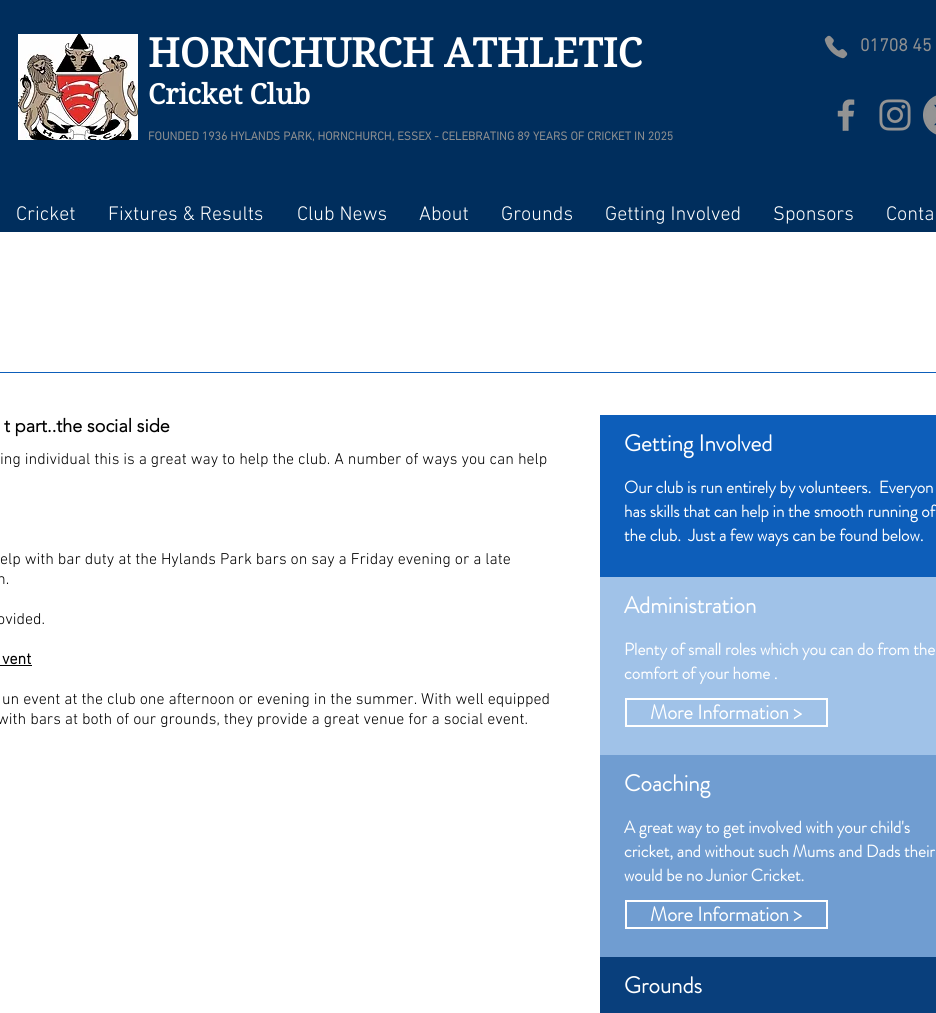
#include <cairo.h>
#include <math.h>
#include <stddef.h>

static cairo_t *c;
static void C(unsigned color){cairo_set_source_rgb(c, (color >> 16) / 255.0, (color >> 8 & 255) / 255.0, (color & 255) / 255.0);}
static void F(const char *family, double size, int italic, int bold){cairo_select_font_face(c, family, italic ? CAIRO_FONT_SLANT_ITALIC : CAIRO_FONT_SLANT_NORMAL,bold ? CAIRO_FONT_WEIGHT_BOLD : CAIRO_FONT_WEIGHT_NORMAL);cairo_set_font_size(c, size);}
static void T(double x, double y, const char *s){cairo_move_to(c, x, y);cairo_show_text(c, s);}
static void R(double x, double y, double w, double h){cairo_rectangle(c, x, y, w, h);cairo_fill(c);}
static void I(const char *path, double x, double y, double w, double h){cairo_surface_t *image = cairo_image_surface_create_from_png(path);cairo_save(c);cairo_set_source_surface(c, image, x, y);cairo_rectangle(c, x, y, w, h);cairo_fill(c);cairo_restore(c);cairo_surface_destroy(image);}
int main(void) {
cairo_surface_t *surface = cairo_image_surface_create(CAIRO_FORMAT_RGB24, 936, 1013);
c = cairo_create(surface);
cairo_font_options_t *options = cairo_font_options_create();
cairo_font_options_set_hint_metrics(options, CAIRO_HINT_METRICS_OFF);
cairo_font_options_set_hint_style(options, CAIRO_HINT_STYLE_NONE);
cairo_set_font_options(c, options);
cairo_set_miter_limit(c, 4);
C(0xffffff);
cairo_paint(c);
C(0x002e5d);
R(0,0,936,232);
I("1.png",18,34,120,106);
F("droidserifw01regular",40,0,1);
C(0xffffff);
T(148,67,"HORNCHURCH ATHLETIC");
I("2.png",824,35,24,24);
F("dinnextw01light",18,0,1);
C(0x909090);
T(860,51,"01708 45");
F("droidserifw01regular",28,0,1);
C(0xffffff);
T(148,104,"Cricket Club");
I("3.png",837,99,18,32);
I("4.png",879,99,32,32);
I("5.png",923,95,13,40);
F("dinnextw01light",12,0,1);
C(0x909090);
T(148,140,"FOUNDED 1936 HYLANDS PARK, HORNCHURCH, ESSEX - CELEBRATING 89 YEARS OF CRICKET IN 2025");
F("dinnextw01light Light",20,0,0);
C(0xffffff);
T(16,220,"Cricket");
T(108,220,"Fixtures & Results");
T(297,220,"Club News");
T(419,220,"About");
T(501,220,"Grounds");
T(605,220,"Getting Involved");
T(773,220,"Sponsors");
T(886,220,"Conta");
C(0x0d5eba);
R(0,372,936,1);
F("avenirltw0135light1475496",18,0,1);
C(0x000000);
T(4,432,"t part..the social side");
F("dinnextw01light Light",16,0,0);
T(0,464,"ing individual this is a great way to help the club. A number of ways you can help");
T(0,564,"elp with bar duty at the Hylands Park bars on say a Friday evening or a late");
T(-3,584,"n.");
T(-3,624,"ovided.");
F("dinnextw01light",16,0,1);
T(2,664,"vent");
R(0,665,32,1);
F("dinnextw01light Light",16,0,0);
T(2,704,"un event at the club one afternoon or evening in the summer. With well equipped");
T(-3,724,"with bars at both of our grounds, they provide a great venue for a social event.");
C(0x0d5eba);
R(600,415,336,162);
F("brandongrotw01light",23,0,1);
C(0xffffff);
T(624,451,"Getting Involved");
F("brandongrotw01light",17,0,1);
T(624,493,"Our club is run entirely by volunteers.  Everyon");
T(624,517,"has skills that can help in the smooth running of");
T(624,541,"the club.  Just a few ways can be found below.");
C(0xa0c2e8);
R(600,577,336,178);
F("brandongrotw01light",23,0,1);
C(0xffffff);
T(624,613,"Administration");
F("brandongrotw01light",17,0,1);
T(624,655,"Plenty of small roles which you can do from the");
T(624,679,"comfort of your home .");
cairo_rectangle(c,626,699,201,27);
cairo_stroke(c);
F("brandongrotw01light",20,0,1);
T(650,719,"More Information >");
C(0x709dd1);
R(600,755,336,202);
F("brandongrotw01light",23,0,1);
C(0xffffff);
T(624,791,"Coaching");
F("brandongrotw01light",17,0,1);
T(624,833,"A great way to get involved with your child's");
T(624,857,"cricket, and without such Mums and Dads their");
T(624,881,"would be no Junior Cricket.");
cairo_rectangle(c,626,901,201,27);
cairo_stroke(c);
F("brandongrotw01light",20,0,1);
T(650,921,"More Information >");
C(0x093f7c);
R(600,957,336,56);
F("brandongrotw01light",23,0,1);
C(0xffffff);
T(624,993,"Grounds");
cairo_surface_write_to_png(surface, "o.png");
cairo_font_options_destroy(options);
cairo_destroy(c);
cairo_surface_destroy(surface);
return 0;
}
